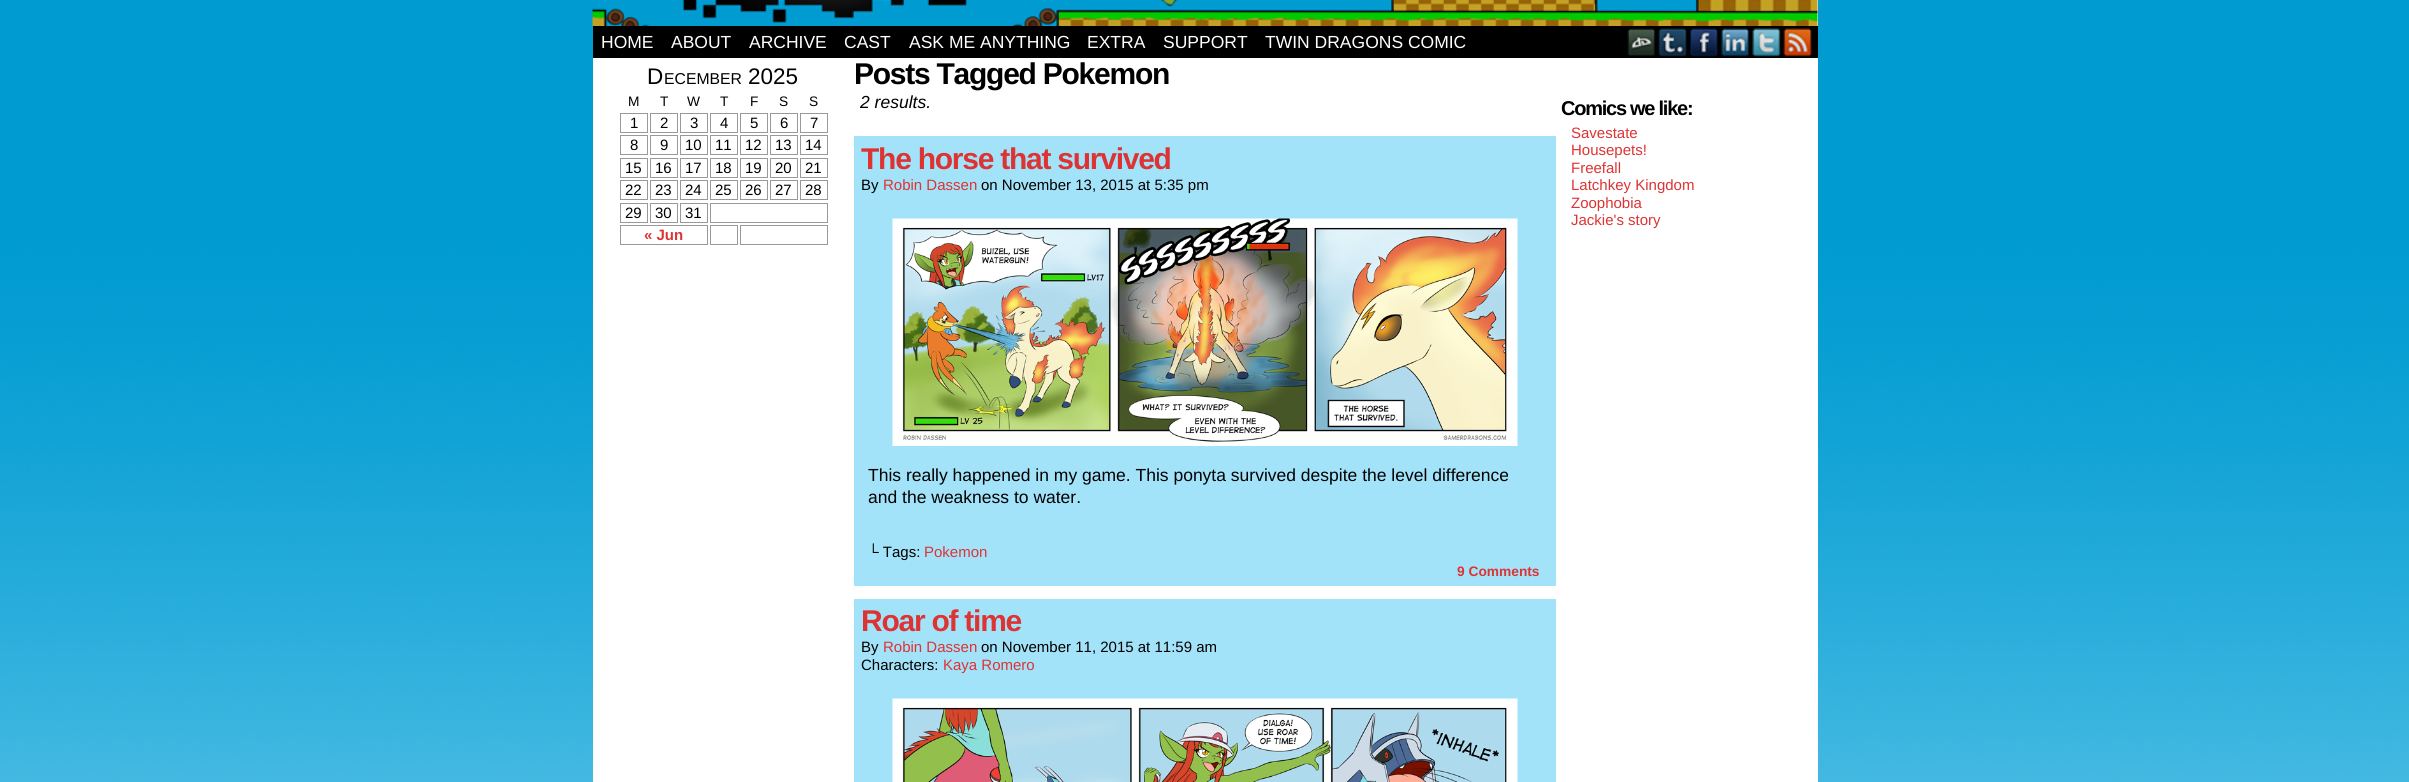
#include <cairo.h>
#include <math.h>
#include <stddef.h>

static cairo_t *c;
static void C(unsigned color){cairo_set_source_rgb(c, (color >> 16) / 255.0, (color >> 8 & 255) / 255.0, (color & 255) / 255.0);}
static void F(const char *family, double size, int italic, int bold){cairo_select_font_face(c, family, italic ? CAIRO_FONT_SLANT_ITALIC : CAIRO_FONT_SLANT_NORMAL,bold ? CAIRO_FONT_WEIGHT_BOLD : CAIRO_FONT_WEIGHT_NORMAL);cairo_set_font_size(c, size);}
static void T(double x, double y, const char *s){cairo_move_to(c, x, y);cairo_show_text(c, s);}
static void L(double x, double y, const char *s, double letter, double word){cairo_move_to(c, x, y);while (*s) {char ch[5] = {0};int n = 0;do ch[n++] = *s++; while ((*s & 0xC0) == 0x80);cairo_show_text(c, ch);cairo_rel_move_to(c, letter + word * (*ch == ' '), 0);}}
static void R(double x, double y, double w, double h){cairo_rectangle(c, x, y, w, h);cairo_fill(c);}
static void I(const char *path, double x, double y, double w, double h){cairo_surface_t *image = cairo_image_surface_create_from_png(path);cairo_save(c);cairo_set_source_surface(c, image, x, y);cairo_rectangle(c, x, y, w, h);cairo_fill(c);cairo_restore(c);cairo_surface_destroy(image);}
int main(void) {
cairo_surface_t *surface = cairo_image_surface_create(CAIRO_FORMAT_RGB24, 2409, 782);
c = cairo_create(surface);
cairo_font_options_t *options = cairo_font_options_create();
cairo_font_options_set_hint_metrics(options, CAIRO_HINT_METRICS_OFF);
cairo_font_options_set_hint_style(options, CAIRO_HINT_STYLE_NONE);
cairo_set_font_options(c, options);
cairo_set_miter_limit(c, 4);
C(0xffffff);
cairo_paint(c);
I("1.png",0,0,2409,782);
C(0xffffff);
R(593,0,1225,782);
I("2.png",592,0,1226,26);
C(0x000000);
R(593,26,1225,32);
F("Liberation Sans",17.5,0,0);
C(0xffffff);
T(601,48,"HOME");
T(671,48,"ABOUT");
T(749,48,"ARCHIVE");
T(844,48,"CAST");
T(909,48,"ASK ME ANYTHING");
T(1087,48,"EXTRA");
T(1163,48,"SUPPORT");
T(1265,48,"TWIN DRAGONS COMIC");
I("3.png",1627,28,29,28);
I("4.png",1658,28,29,29);
I("5.png",1690,28,28,29);
I("6.png",1721,28,28,29);
I("7.png",1752,28,29,29);
I("8.png",1783,28,29,29);
F("Liberation Sans",22.5,0,0);
C(0x000000);
T(647,84,"D");
F("Liberation Sans",15.75,0,0);
T(664,84,"ECEMBER");
F("Liberation Sans",22.5,0,0);
T(748,84,"2025");
F("Liberation Sans",13.75,0,0);
T(628,106,"M");
T(660,106,"T");
T(687,106,"W");
T(720,106,"T");
T(750,106,"F");
T(779,106,"S");
T(809,106,"S");
cairo_rectangle(c,620.5,113.5,27,19);
C(0x999999);
cairo_set_line_width(c,1);
cairo_stroke(c);
F("Liberation Sans",15,0,0);
C(0x000000);
T(630,128,"1");
cairo_rectangle(c,650.5,113.5,27,19);
C(0x999999);
cairo_stroke(c);
C(0x000000);
T(660,128,"2");
cairo_rectangle(c,680.5,113.5,27,19);
C(0x999999);
cairo_stroke(c);
C(0x000000);
T(690,128,"3");
cairo_rectangle(c,710.5,113.5,27,19);
C(0x999999);
cairo_stroke(c);
C(0x000000);
T(720,128,"4");
cairo_rectangle(c,740.5,113.5,27,19);
C(0x999999);
cairo_stroke(c);
C(0x000000);
T(750,128,"5");
cairo_rectangle(c,770.5,113.5,27,19);
C(0x999999);
cairo_stroke(c);
C(0x000000);
T(780,128,"6");
cairo_rectangle(c,800.5,113.5,27,19);
C(0x999999);
cairo_stroke(c);
C(0x000000);
T(810,128,"7");
cairo_rectangle(c,620.5,135.5,27,19);
C(0x999999);
cairo_stroke(c);
C(0x000000);
T(630,150,"8");
cairo_rectangle(c,650.5,135.5,27,19);
C(0x999999);
cairo_stroke(c);
C(0x000000);
T(660,150,"9");
cairo_rectangle(c,680.5,135.5,27,19);
C(0x999999);
cairo_stroke(c);
C(0x000000);
T(685,150,"10");
cairo_rectangle(c,710.5,135.5,27,19);
C(0x999999);
cairo_stroke(c);
C(0x000000);
T(715,150,"11");
cairo_rectangle(c,740.5,135.5,27,19);
C(0x999999);
cairo_stroke(c);
C(0x000000);
T(745,150,"12");
cairo_rectangle(c,770.5,135.5,27,19);
C(0x999999);
cairo_stroke(c);
C(0x000000);
T(775,150,"13");
cairo_rectangle(c,800.5,135.5,27,19);
C(0x999999);
cairo_stroke(c);
C(0x000000);
T(805,150,"14");
cairo_rectangle(c,620.5,158.5,27,19);
C(0x999999);
cairo_stroke(c);
C(0x000000);
T(625,173,"15");
cairo_rectangle(c,650.5,158.5,27,19);
C(0x999999);
cairo_stroke(c);
C(0x000000);
T(655,173,"16");
cairo_rectangle(c,680.5,158.5,27,19);
C(0x999999);
cairo_stroke(c);
C(0x000000);
T(685,173,"17");
cairo_rectangle(c,710.5,158.5,27,19);
C(0x999999);
cairo_stroke(c);
C(0x000000);
T(715,173,"18");
cairo_rectangle(c,740.5,158.5,27,19);
C(0x999999);
cairo_stroke(c);
C(0x000000);
T(745,173,"19");
cairo_rectangle(c,770.5,158.5,27,19);
C(0x999999);
cairo_stroke(c);
C(0x000000);
T(775,173,"20");
cairo_rectangle(c,800.5,158.5,27,19);
C(0x999999);
cairo_stroke(c);
C(0x000000);
T(805,173,"21");
cairo_rectangle(c,620.5,180.5,27,19);
C(0x999999);
cairo_stroke(c);
C(0x000000);
T(625,195,"22");
cairo_rectangle(c,650.5,180.5,27,19);
C(0x999999);
cairo_stroke(c);
C(0x000000);
T(655,195,"23");
cairo_rectangle(c,680.5,180.5,27,19);
C(0x999999);
cairo_stroke(c);
C(0x000000);
T(685,195,"24");
cairo_rectangle(c,710.5,180.5,27,19);
C(0x999999);
cairo_stroke(c);
C(0x000000);
T(715,195,"25");
cairo_rectangle(c,740.5,180.5,27,19);
C(0x999999);
cairo_stroke(c);
C(0x000000);
T(745,195,"26");
cairo_rectangle(c,770.5,180.5,27,19);
C(0x999999);
cairo_stroke(c);
C(0x000000);
T(775,195,"27");
cairo_rectangle(c,800.5,180.5,27,19);
C(0x999999);
cairo_stroke(c);
C(0x000000);
T(805,195,"28");
cairo_rectangle(c,620.5,203.5,27,19);
C(0x999999);
cairo_stroke(c);
C(0x000000);
T(625,218,"29");
cairo_rectangle(c,650.5,203.5,27,19);
C(0x999999);
cairo_stroke(c);
C(0x000000);
T(655,218,"30");
cairo_rectangle(c,680.5,203.5,27,19);
C(0x999999);
cairo_stroke(c);
C(0x000000);
T(685,218,"31");
cairo_rectangle(c,710.5,203.5,117,19);
C(0x999999);
cairo_stroke(c);
cairo_rectangle(c,620.5,225.5,87,19);
cairo_stroke(c);
F("Liberation Sans",15,0,1);
C(0xdd3333);
T(644,240,"« Jun");
cairo_rectangle(c,710.5,225.5,27,19);
C(0x999999);
cairo_stroke(c);
cairo_rectangle(c,740.5,225.5,87,19);
cairo_stroke(c);
F("Liberation Sans",30,0,1);
C(0x000000);
L(854,84,"Posts Tagged Pokemon",-1.25,0);
F("Liberation Sans",17.5,1,0);
T(860,108,"2 results.");
C(0xa3e3fa);
R(854,136,702,450);
F("Liberation Sans",30,0,1);
C(0xdd3333);
L(861,169,"The horse that survived",-1.25,0);
F("Liberation Sans",15,0,0);
C(0x000000);
T(861,190,"By");
C(0xdd3333);
T(883,190,"Robin Dassen");
C(0x000000);
T(981,190,"on November 13, 2015 at 5:35 pm");
I("9.png",892,218,626,228);
F("Liberation Sans",17.5,0,0);
T(868,481,"This really happened in my game. This ponyta survived despite the level difference");
T(868,503,"and the weakness to water.");
F("Liberation Sans",15,0,0);
T(868,557,"└ Tags:");
C(0xdd3333);
T(924,557,"Pokemon");
F("Liberation Sans",13.75,0,1);
T(1457,576,"9 Comments");
C(0xa3e3fa);
R(854,599,702,183);
F("Liberation Sans",30,0,1);
C(0xdd3333);
L(861,631,"Roar of time",-1.25,0);
F("Liberation Sans",15,0,0);
C(0x000000);
T(861,652,"By");
C(0xdd3333);
T(883,652,"Robin Dassen");
C(0x000000);
T(981,652,"on November 11, 2015 at 11:59 am");
T(861,670,"Characters:");
C(0xdd3333);
T(943,670,"Kaya Romero");
I("10.png",892,698,626,84);
F("Liberation Sans",20,0,1);
C(0x000000);
L(1561,115,"Comics we like:",-1.25,0);
F("Liberation Sans",15,0,0);
C(0xdd3333);
T(1571,138,"Savestate");
T(1571,155,"Housepets!");
T(1571,173,"Freefall");
T(1571,190,"Latchkey Kingdom");
T(1571,208,"Zoophobia");
T(1571,225,"Jackie's story");
cairo_surface_write_to_png(surface, "o.png");
cairo_font_options_destroy(options);
cairo_destroy(c);
cairo_surface_destroy(surface);
return 0;
}
